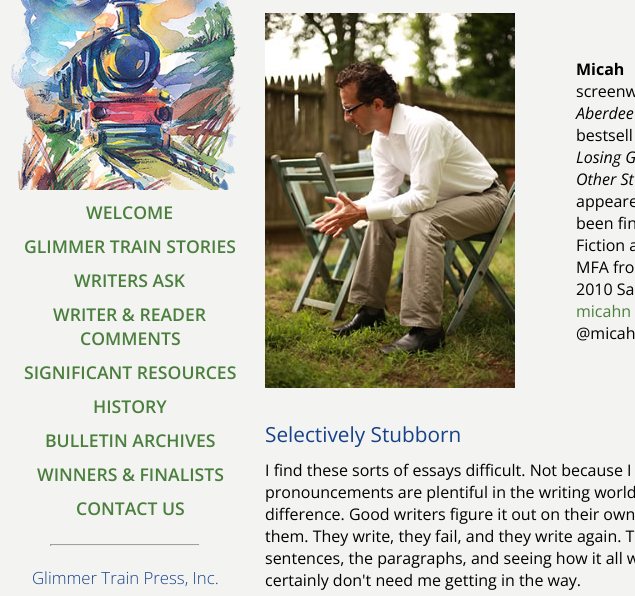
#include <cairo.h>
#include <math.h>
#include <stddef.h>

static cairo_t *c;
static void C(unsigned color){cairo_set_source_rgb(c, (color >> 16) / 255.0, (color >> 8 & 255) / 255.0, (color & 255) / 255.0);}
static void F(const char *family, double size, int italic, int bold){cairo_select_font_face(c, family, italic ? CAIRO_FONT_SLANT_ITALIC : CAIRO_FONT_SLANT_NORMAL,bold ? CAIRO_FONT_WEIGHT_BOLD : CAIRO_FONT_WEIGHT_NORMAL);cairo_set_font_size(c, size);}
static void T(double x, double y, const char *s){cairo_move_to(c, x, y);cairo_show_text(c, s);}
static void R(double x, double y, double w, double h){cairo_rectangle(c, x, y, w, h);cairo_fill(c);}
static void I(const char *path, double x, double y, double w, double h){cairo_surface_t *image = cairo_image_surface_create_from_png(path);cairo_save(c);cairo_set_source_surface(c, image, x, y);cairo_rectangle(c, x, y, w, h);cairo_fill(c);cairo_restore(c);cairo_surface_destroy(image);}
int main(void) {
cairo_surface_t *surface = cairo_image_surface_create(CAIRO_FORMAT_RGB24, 635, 596);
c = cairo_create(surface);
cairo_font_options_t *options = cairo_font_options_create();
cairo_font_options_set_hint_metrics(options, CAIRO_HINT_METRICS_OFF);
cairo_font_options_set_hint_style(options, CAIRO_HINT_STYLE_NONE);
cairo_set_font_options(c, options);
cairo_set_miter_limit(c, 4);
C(0xf3f3f1);
cairo_paint(c);
I("1.png",11,0,230,190);
F("Open Sans SemiBold",17.6,0,0);
C(0x4b7f3d);
T(86,219,"WELCOME");
T(24,253,"GLIMMER TRAIN STORIES");
T(74,287,"WRITERS ASK");
T(53,321,"WRITER & READER");
T(80,345,"COMMENTS");
T(24,379,"SIGNIFICANT RESOURCES");
T(93,413,"HISTORY");
T(45,447,"BULLETIN ARCHIVES");
T(37,481,"WINNERS & FINALISTS");
T(76,515,"CONTACT US");
C(0x9f9f9f);
R(50,544,150,1);
C(0xeeeeee);
R(199,544,1,2);
R(50,545,150,1);
C(0x9f9f9f);
R(50,544,1,2);
F("Open Sans Light",16.75,0,0);
C(0x174288);
T(32,584,"Glimmer Train Press, Inc.");
I("2.png",265,13,250,375);
F("Open Sans",16,0,1);
C(0x000000);
T(576,75,"Micah");
F("Open Sans",16,0,0);
T(576,97,"screenw");
F("Open Sans",16,1,0);
T(576,119,"Aberdee");
F("Open Sans",16,0,0);
T(576,141,"bestsell");
F("Open Sans",16,1,0);
T(576,163,"Losing G");
T(576,185,"Other St");
F("Open Sans",16,0,0);
T(576,207,"appeare");
T(576,229,"been fin");
T(576,251,"Fiction a");
T(576,273,"MFA fro");
T(576,295,"2010 Sa");
C(0x4b7f3d);
T(576,317,"micahn");
C(0x000000);
T(576,339,"@micah");
F("Open Sans",20.75,0,0);
C(0x174288);
T(265,442,"Selectively Stubborn");
F("Open Sans",16,0,0);
C(0x000000);
T(265,476,"I find these sorts of essays difficult. Not because I");
T(265,498,"pronouncements are plentiful in the writing world");
T(265,520,"difference. Good writers figure it out on their own");
T(265,542,"them. They write, they fail, and they write again. T");
T(265,564,"sentences, the paragraphs, and seeing how it all w");
T(265,586,"certainly don't need me getting in the way.");
cairo_surface_write_to_png(surface, "o.png");
cairo_font_options_destroy(options);
cairo_destroy(c);
cairo_surface_destroy(surface);
return 0;
}
